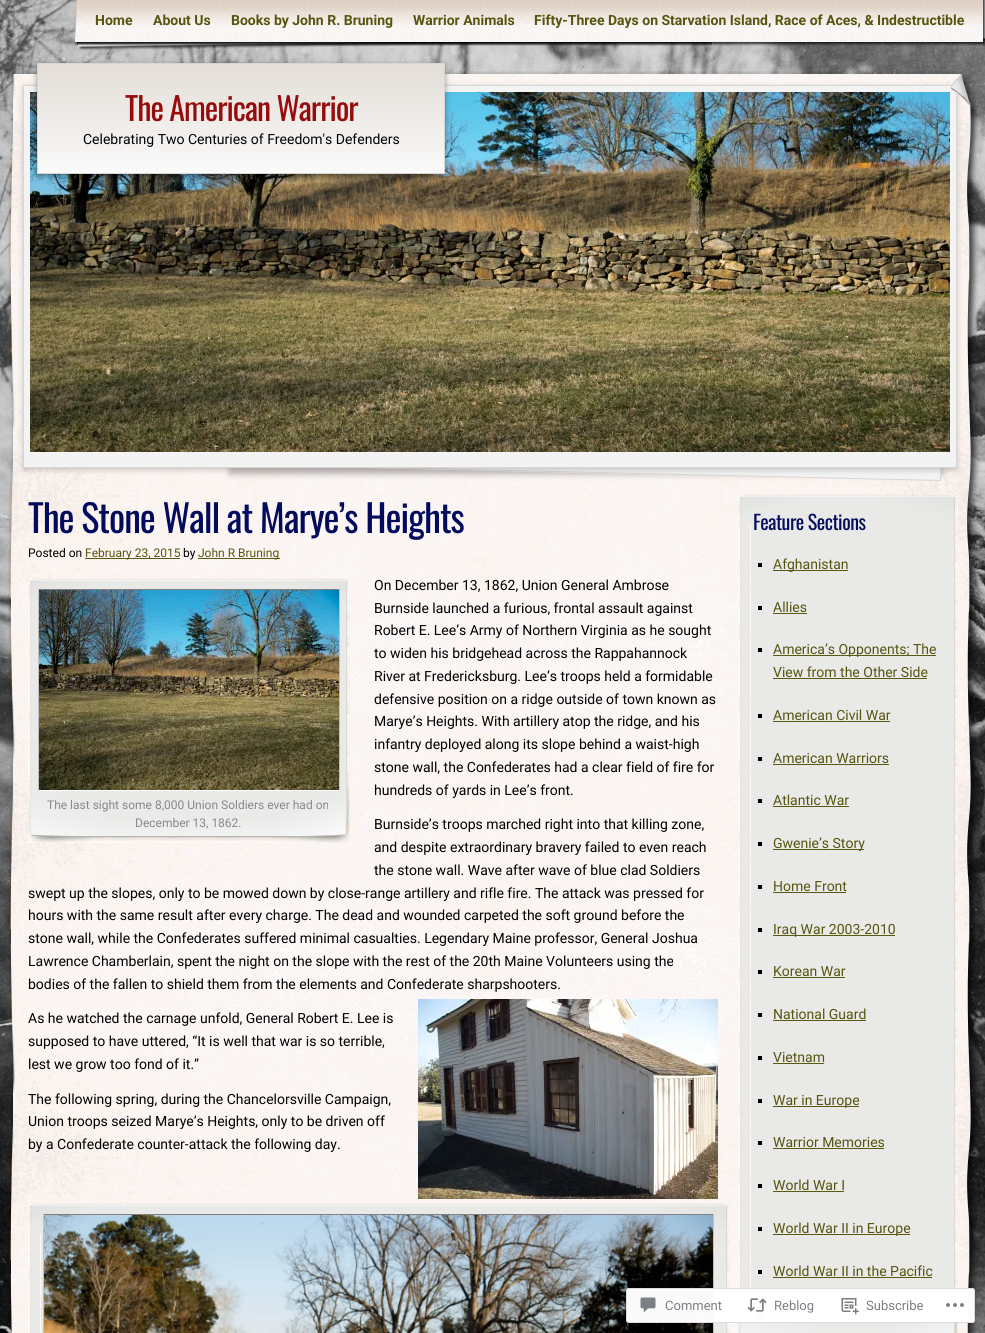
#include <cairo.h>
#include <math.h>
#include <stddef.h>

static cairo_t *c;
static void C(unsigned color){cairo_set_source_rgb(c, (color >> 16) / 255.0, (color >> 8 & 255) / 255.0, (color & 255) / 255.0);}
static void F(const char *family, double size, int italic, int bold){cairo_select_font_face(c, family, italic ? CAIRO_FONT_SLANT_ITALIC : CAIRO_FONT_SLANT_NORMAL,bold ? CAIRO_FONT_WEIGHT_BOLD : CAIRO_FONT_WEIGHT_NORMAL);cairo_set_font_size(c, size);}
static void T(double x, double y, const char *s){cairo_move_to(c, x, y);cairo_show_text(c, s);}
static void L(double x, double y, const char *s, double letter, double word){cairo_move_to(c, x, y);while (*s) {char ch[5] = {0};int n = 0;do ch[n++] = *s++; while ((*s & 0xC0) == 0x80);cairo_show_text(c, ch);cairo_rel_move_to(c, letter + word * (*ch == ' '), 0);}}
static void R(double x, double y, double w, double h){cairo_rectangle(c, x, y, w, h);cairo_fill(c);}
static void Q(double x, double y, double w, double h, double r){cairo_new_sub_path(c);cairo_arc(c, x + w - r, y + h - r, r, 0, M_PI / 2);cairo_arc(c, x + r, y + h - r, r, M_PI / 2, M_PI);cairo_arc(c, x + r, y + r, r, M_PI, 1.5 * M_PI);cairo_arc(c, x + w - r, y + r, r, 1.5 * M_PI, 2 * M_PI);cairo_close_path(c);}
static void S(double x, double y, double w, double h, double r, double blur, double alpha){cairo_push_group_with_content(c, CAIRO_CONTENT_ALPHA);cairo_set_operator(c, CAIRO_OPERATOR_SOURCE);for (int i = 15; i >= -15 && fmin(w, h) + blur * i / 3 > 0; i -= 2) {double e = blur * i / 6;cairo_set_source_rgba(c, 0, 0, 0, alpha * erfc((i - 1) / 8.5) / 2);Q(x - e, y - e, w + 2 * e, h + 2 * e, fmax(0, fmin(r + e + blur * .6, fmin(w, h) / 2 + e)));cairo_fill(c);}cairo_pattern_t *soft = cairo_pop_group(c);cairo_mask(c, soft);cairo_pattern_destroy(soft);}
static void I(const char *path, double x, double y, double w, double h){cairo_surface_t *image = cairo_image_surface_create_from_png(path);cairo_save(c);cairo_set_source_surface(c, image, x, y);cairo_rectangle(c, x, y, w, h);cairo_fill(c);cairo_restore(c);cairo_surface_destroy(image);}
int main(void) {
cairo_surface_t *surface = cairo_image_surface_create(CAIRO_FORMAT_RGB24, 985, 1333);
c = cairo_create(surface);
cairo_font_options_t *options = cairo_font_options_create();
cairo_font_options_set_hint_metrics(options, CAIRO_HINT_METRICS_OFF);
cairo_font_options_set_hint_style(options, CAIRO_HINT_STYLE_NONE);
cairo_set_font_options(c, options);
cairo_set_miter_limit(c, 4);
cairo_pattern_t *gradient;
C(0xffffff);
cairo_paint(c);
I("1.png",0,0,985,1333);
I("2.png",73,0,639,51);
I("3.png",77,0,906,46);
F("Roboto",14,0,1);
C(0x56540f);
T(95,25,"Home");
T(153,25,"About Us");
T(231,25,"Books by John R. Bruning");
T(413,25,"Warrior Animals");
T(534,25,"Fifty-Three Days on Starvation Island, Race of Aces, & Indestructible");
I("4.png",983,0,2,46);
I("5.png",11,71,969,38);
I("8.png",8,109,973,1224);
C(0x000000);
S(229,359,714,116,0,3,.2);
C(0xf3f3f3);
cairo_new_path(c);
cairo_move_to(c,230,349);
cairo_line_to(c,944,365);
cairo_line_to(c,941,481);
cairo_line_to(c,227,465);
cairo_close_path(c);
cairo_fill(c);
cairo_new_path(c);
cairo_move_to(c,230.5,349);
cairo_line_to(c,943,365.5);
cairo_line_to(c,940.5,480.5);
cairo_line_to(c,228,464);
cairo_close_path(c);
C(0xd9d5d3);
cairo_set_line_width(c,1);
cairo_stroke(c);
C(0x000000);
S(23,87,934,383,0,3,.2);
C(0xf3f3f3);
cairo_rectangle(c,23.5,85.5,933,382);
cairo_fill_preserve(c);
C(0xd9d5d3);
cairo_stroke(c);
I("6.png",951,74,25,32);
I("7.png",30,92,920,360);
C(0x000000);
S(37,65,408,111,0,3,.4);
gradient = cairo_pattern_create_linear(241,64,241,173);
cairo_pattern_add_color_stop_rgba(gradient,0,0.89,0.867,0.843,1);
cairo_pattern_add_color_stop_rgba(gradient,1,0.98,0.98,0.98,1);
cairo_set_source(c,gradient);
cairo_pattern_destroy(gradient);
R(38,64,406,109);
cairo_rectangle(c,37.5,63.5,407,110);
C(0xd9d5d3);
cairo_stroke(c);
F("Oswald",32,0,0);
C(0x960c0c);
L(125,121,"The American Warrior",-1,0);
F("Roboto",14,0,0);
C(0x000000);
T(83,144,"Celebrating Two Centuries of Freedom's Defenders");
F("Oswald",38,0,0);
C(0x030b5d);
L(28,533,"The Stone Wall at Marye’s Heights",-1,0);
F("Roboto",12,0,0);
C(0x000000);
T(28,557,"Posted on");
C(0x5b5810);
R(85,558,95,1);
C(0x56540f);
T(85,557,"February 23, 2015");
C(0x000000);
T(183,557,"by");
C(0x5b5810);
R(198,558,82,1);
C(0x56540f);
T(198,557,"John R Bruning");
F("Roboto",14,0,0);
C(0x000000);
T(374,590,"On December 13, 1862, Union General Ambrose");
T(374,613,"Burnside launched a furious, frontal assault against");
T(374,635,"Robert E. Lee’s Army of Northern Virginia as he sought");
T(374,658,"to widen his bridgehead across the Rappahannock");
T(374,681,"River at Fredericksburg. Lee’s troops held a formidable");
T(374,704,"defensive position on a ridge outside of town known as");
T(374,726,"Marye’s Heights. With artillery atop the ridge, and his");
T(374,749,"infantry deployed along its slope behind a waist-high");
T(374,772,"stone wall, the Confederates had a clear field of fire for");
T(374,795,"hundreds of yards in Lee’s front.");
I("9.png",28,578,322,265);
C(0x808080);
R(38,589,302,1);
C(0xc0c0c0);
R(339,589,1,202);
C(0xffffff);
R(38,790,302,1);
C(0xc0c0c0);
R(38,589,1,202);
I("10.png",39,590,300,200);
F("Roboto",12,0,0);
C(0x888888);
T(47,809,"The last sight some 8,000 Union Soldiers ever had on");
T(135,827,"December 13, 1862.");
F("Roboto",14,0,0);
C(0x000000);
T(374,829,"Burnside’s troops marched right into that killing zone,");
T(374,852,"and despite extraordinary bravery failed to even reach");
T(374,875,"the stone wall. Wave after wave of blue clad Soldiers");
T(28,898,"swept up the slopes, only to be mowed down by close-range artillery and rifle fire. The attack was pressed for");
T(28,920,"hours with the same result after every charge. The dead and wounded carpeted the soft ground before the");
T(28,943,"stone wall, while the Confederates suffered minimal casualties. Legendary Maine professor, General Joshua");
T(28,966,"Lawrence Chamberlain, spent the night on the slope with the rest of the 20th Maine Volunteers using the");
T(28,989,"bodies of the fallen to shield them from the elements and Confederate sharpshooters.");
I("11.png",418,999,300,200);
T(28,1023,"As he watched the carnage unfold, General Robert E. Lee is");
T(28,1046,"supposed to have uttered, “It is well that war is so terrible,");
T(28,1069,"lest we grow too fond of it.”");
T(28,1104,"The following spring, during the Chancelorsville Campaign,");
T(28,1126,"Union troops seized Marye’s Heights, only to be driven off");
T(28,1149,"by a Confederate counter-attack the following day.");
C(0xe9e9e8);
R(41,1233,677,100);
I("12.png",28,1203,702,130);
C(0x808080);
R(43,1214,671,1);
C(0xc0c0c0);
R(713,1214,1,119);
R(43,1214,1,119);
I("13.png",44,1215,669,118);
C(0xe9e9e8);
R(751,524,195,770);
I("14.png",738,494,220,839);
F("Oswald",20,0,0);
C(0x030b5d);
L(753,530,"Feature Sections",-.5,0);
C(0x000000);
R(758,563,4,4);
C(0x5b5810);
R(773,570,75,1);
F("Roboto",14,0,0);
C(0x56540f);
T(773,569,"Afghanistan");
C(0x000000);
R(758,606,4,4);
C(0x56540f);
T(773,612,"Allies");
C(0x5b5810);
R(773,613,34,1);
C(0x000000);
R(758,648,4,4);
C(0x5b5810);
R(773,655,163,1);
C(0x56540f);
T(773,654,"America’s Opponents; The");
T(773,677,"View from the Other Side");
C(0x5b5810);
R(773,678,154,1);
C(0x000000);
R(758,714,4,4);
C(0x56540f);
T(773,720,"American Civil War");
C(0x5b5810);
R(773,721,117,1);
C(0x000000);
R(758,757,4,4);
C(0x56540f);
T(773,763,"American Warriors");
C(0x5b5810);
R(773,764,116,1);
C(0x000000);
R(758,799,4,4);
C(0x56540f);
T(773,805,"Atlantic War");
C(0x5b5810);
R(773,806,76,1);
C(0x000000);
R(758,842,4,4);
C(0x5b5810);
R(773,849,91,1);
C(0x56540f);
T(773,848,"Gwenie’s Story");
C(0x000000);
R(758,885,4,4);
C(0x56540f);
T(773,891,"Home Front");
C(0x5b5810);
R(773,892,73,1);
C(0x000000);
R(758,928,4,4);
C(0x5b5810);
R(773,935,122,1);
C(0x56540f);
T(773,934,"Iraq War 2003-2010");
C(0x000000);
R(758,970,4,4);
C(0x56540f);
T(773,976,"Korean War");
C(0x5b5810);
R(773,977,72,1);
C(0x000000);
R(758,1013,4,4);
C(0x56540f);
T(773,1019,"National Guard");
C(0x5b5810);
R(773,1020,93,1);
C(0x000000);
R(758,1056,4,4);
C(0x56540f);
T(773,1062,"Vietnam");
C(0x5b5810);
R(773,1063,51,1);
C(0x000000);
R(758,1099,4,4);
C(0x5b5810);
R(773,1106,86,1);
C(0x56540f);
T(773,1105,"War in Europe");
C(0x000000);
R(758,1141,4,4);
C(0x56540f);
T(773,1147,"Warrior Memories");
C(0x5b5810);
R(773,1148,111,1);
C(0x000000);
R(758,1184,4,4);
C(0x56540f);
T(773,1190,"World War I");
C(0x5b5810);
R(773,1191,71,1);
C(0x000000);
R(758,1227,4,4);
C(0x5b5810);
R(773,1234,137,1);
C(0x56540f);
T(773,1233,"World War II in Europe");
C(0x000000);
R(758,1270,4,4);
C(0x56540f);
T(773,1276,"World War II in the Pacific");
C(0x5b5810);
R(773,1277,159,1);
C(0x000000);
R(758,1312,4,4);
C(0x5b5810);
R(773,1319,84,1);
cairo_set_source_rgba(c,1,1,1,0.98);
Q(626,1288,349,35,3);
cairo_fill(c);
Q(626.5,1288.5,348,34,2.5);
cairo_set_source_rgba(c,0.863,0.863,0.871,0.98);
cairo_stroke(c);
I("15.png",640,1297,16,16);
F("Roboto",13,0,0);
C(0x7b7f84);
T(665,1310,"Comment");
I("16.png",747,1298,20,14);
T(774,1310,"Reblog");
I("17.png",841,1298,18,17);
T(866,1310,"Subscribe");
I("18.png",946,1303,18,4);
cairo_surface_write_to_png(surface, "o.png");
cairo_font_options_destroy(options);
cairo_destroy(c);
cairo_surface_destroy(surface);
return 0;
}
